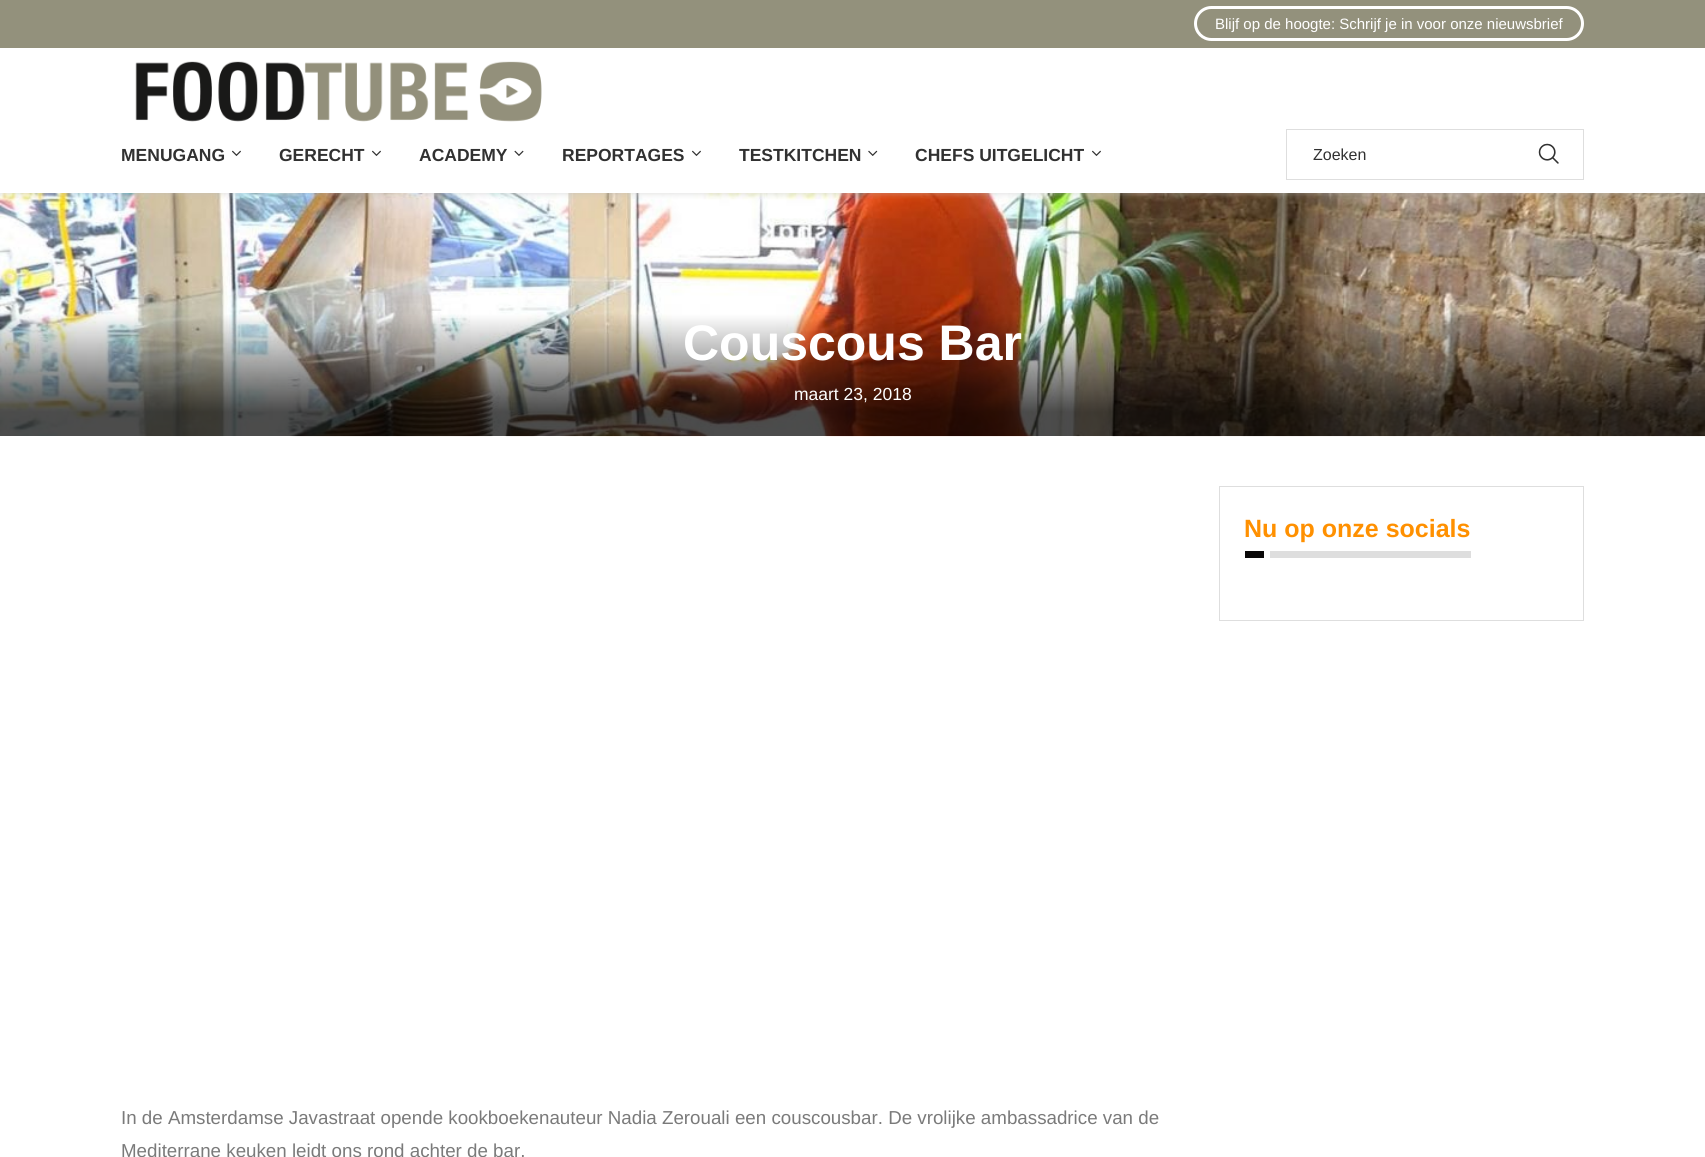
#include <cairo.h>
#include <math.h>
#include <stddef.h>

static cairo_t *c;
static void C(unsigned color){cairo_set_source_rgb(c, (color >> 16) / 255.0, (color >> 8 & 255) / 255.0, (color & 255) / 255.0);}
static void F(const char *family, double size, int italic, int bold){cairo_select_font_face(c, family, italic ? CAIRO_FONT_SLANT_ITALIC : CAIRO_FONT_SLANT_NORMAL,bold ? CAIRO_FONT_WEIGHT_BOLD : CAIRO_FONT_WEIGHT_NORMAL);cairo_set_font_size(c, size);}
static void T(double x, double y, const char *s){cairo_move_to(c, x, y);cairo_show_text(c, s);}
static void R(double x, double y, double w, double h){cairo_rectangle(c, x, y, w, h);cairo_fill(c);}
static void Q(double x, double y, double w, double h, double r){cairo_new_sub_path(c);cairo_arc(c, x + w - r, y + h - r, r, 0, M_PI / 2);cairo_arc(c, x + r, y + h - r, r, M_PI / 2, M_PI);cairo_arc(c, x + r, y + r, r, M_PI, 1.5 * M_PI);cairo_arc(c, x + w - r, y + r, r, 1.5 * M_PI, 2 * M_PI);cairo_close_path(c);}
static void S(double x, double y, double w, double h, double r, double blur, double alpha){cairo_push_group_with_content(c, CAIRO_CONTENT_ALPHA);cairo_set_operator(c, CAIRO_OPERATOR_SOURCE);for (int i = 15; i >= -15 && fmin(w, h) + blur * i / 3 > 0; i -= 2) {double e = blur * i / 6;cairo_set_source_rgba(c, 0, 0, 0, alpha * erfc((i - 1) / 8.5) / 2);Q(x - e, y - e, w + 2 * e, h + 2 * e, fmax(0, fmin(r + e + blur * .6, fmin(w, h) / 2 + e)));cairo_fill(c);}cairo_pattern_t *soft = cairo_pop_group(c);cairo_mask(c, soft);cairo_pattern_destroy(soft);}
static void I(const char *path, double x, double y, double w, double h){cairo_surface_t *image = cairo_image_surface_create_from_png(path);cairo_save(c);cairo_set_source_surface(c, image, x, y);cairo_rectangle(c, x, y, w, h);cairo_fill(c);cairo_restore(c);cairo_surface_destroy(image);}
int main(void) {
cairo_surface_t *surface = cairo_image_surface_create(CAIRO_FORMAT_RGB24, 1705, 1157);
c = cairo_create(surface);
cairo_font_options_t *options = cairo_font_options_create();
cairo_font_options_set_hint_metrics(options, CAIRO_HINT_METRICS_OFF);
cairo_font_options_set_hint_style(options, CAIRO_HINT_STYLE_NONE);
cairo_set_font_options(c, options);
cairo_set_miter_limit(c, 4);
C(0xffffff);
cairo_paint(c);
I("6.png",0,193,1705,244);
cairo_save(c);
cairo_rectangle(c,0,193,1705,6);
cairo_clip(c);
C(0xbebebe);
S(0,1,1705,193,0,3,.46);
cairo_restore(c);
C(0x93917c);
R(0,0,1705,48);
Q(1195.5,7.5,387,32,16);
C(0xffffff);
cairo_set_line_width(c,3);
cairo_stroke(c);
F("Liberation Sans",15,0,0);
T(1215,29,"Blijf op de hoogte: Schrijf je in voor onze nieuwsbrief");
I("1.png",135,61,407,61);
R(0,192,1705,1);
F("Liberation Sans",17.5,0,1);
C(0x313131);
T(121,161,"MENUGANG");
I("2.png",232,150,9,6);
T(279,161,"GERECHT");
I("2.png",372,150,9,6);
T(419,161,"ACADEMY");
I("3.png",514,150,10,6);
T(562,161,"REPORTAGES");
I("2.png",692,150,9,6);
T(739,161,"TESTKITCHEN");
I("4.png",868,150,10,6);
T(915,161,"CHEFS UITGELICHT");
I("2.png",1092,150,9,6);
cairo_rectangle(c,1286.5,129.5,297,50);
C(0xdedede);
cairo_set_line_width(c,1);
cairo_stroke(c);
F("Liberation Sans",16,0,0);
C(0x313131);
T(1313,160,"Zoeken");
I("5.png",1538,143,21,21);
F("Liberation Sans",50,0,1);
C(0xffffff);
T(683,360,"Couscous Bar");
F("Liberation Sans",17.5,0,0);
T(794,400,"maart 23, 2018");
cairo_rectangle(c,1219.5,486.5,364,134);
C(0xdedede);
cairo_stroke(c);
F("Liberation Sans",25,0,1);
C(0xff9000);
T(1244,537,"Nu op onze socials");
C(0x0a0909);
R(1245,551,19,7);
C(0xdedede);
R(1270,551,201,7);
F("Liberation Sans",18.75,0,0);
C(0x7a7a7a);
T(121,1124,"In de Amsterdamse Javastraat opende kookboekenauteur Nadia Zerouali een couscousbar. De vrolijke ambassadrice van de");
T(121,1157,"Mediterrane keuken leidt ons rond achter de bar.");
cairo_surface_write_to_png(surface, "o.png");
cairo_font_options_destroy(options);
cairo_destroy(c);
cairo_surface_destroy(surface);
return 0;
}
